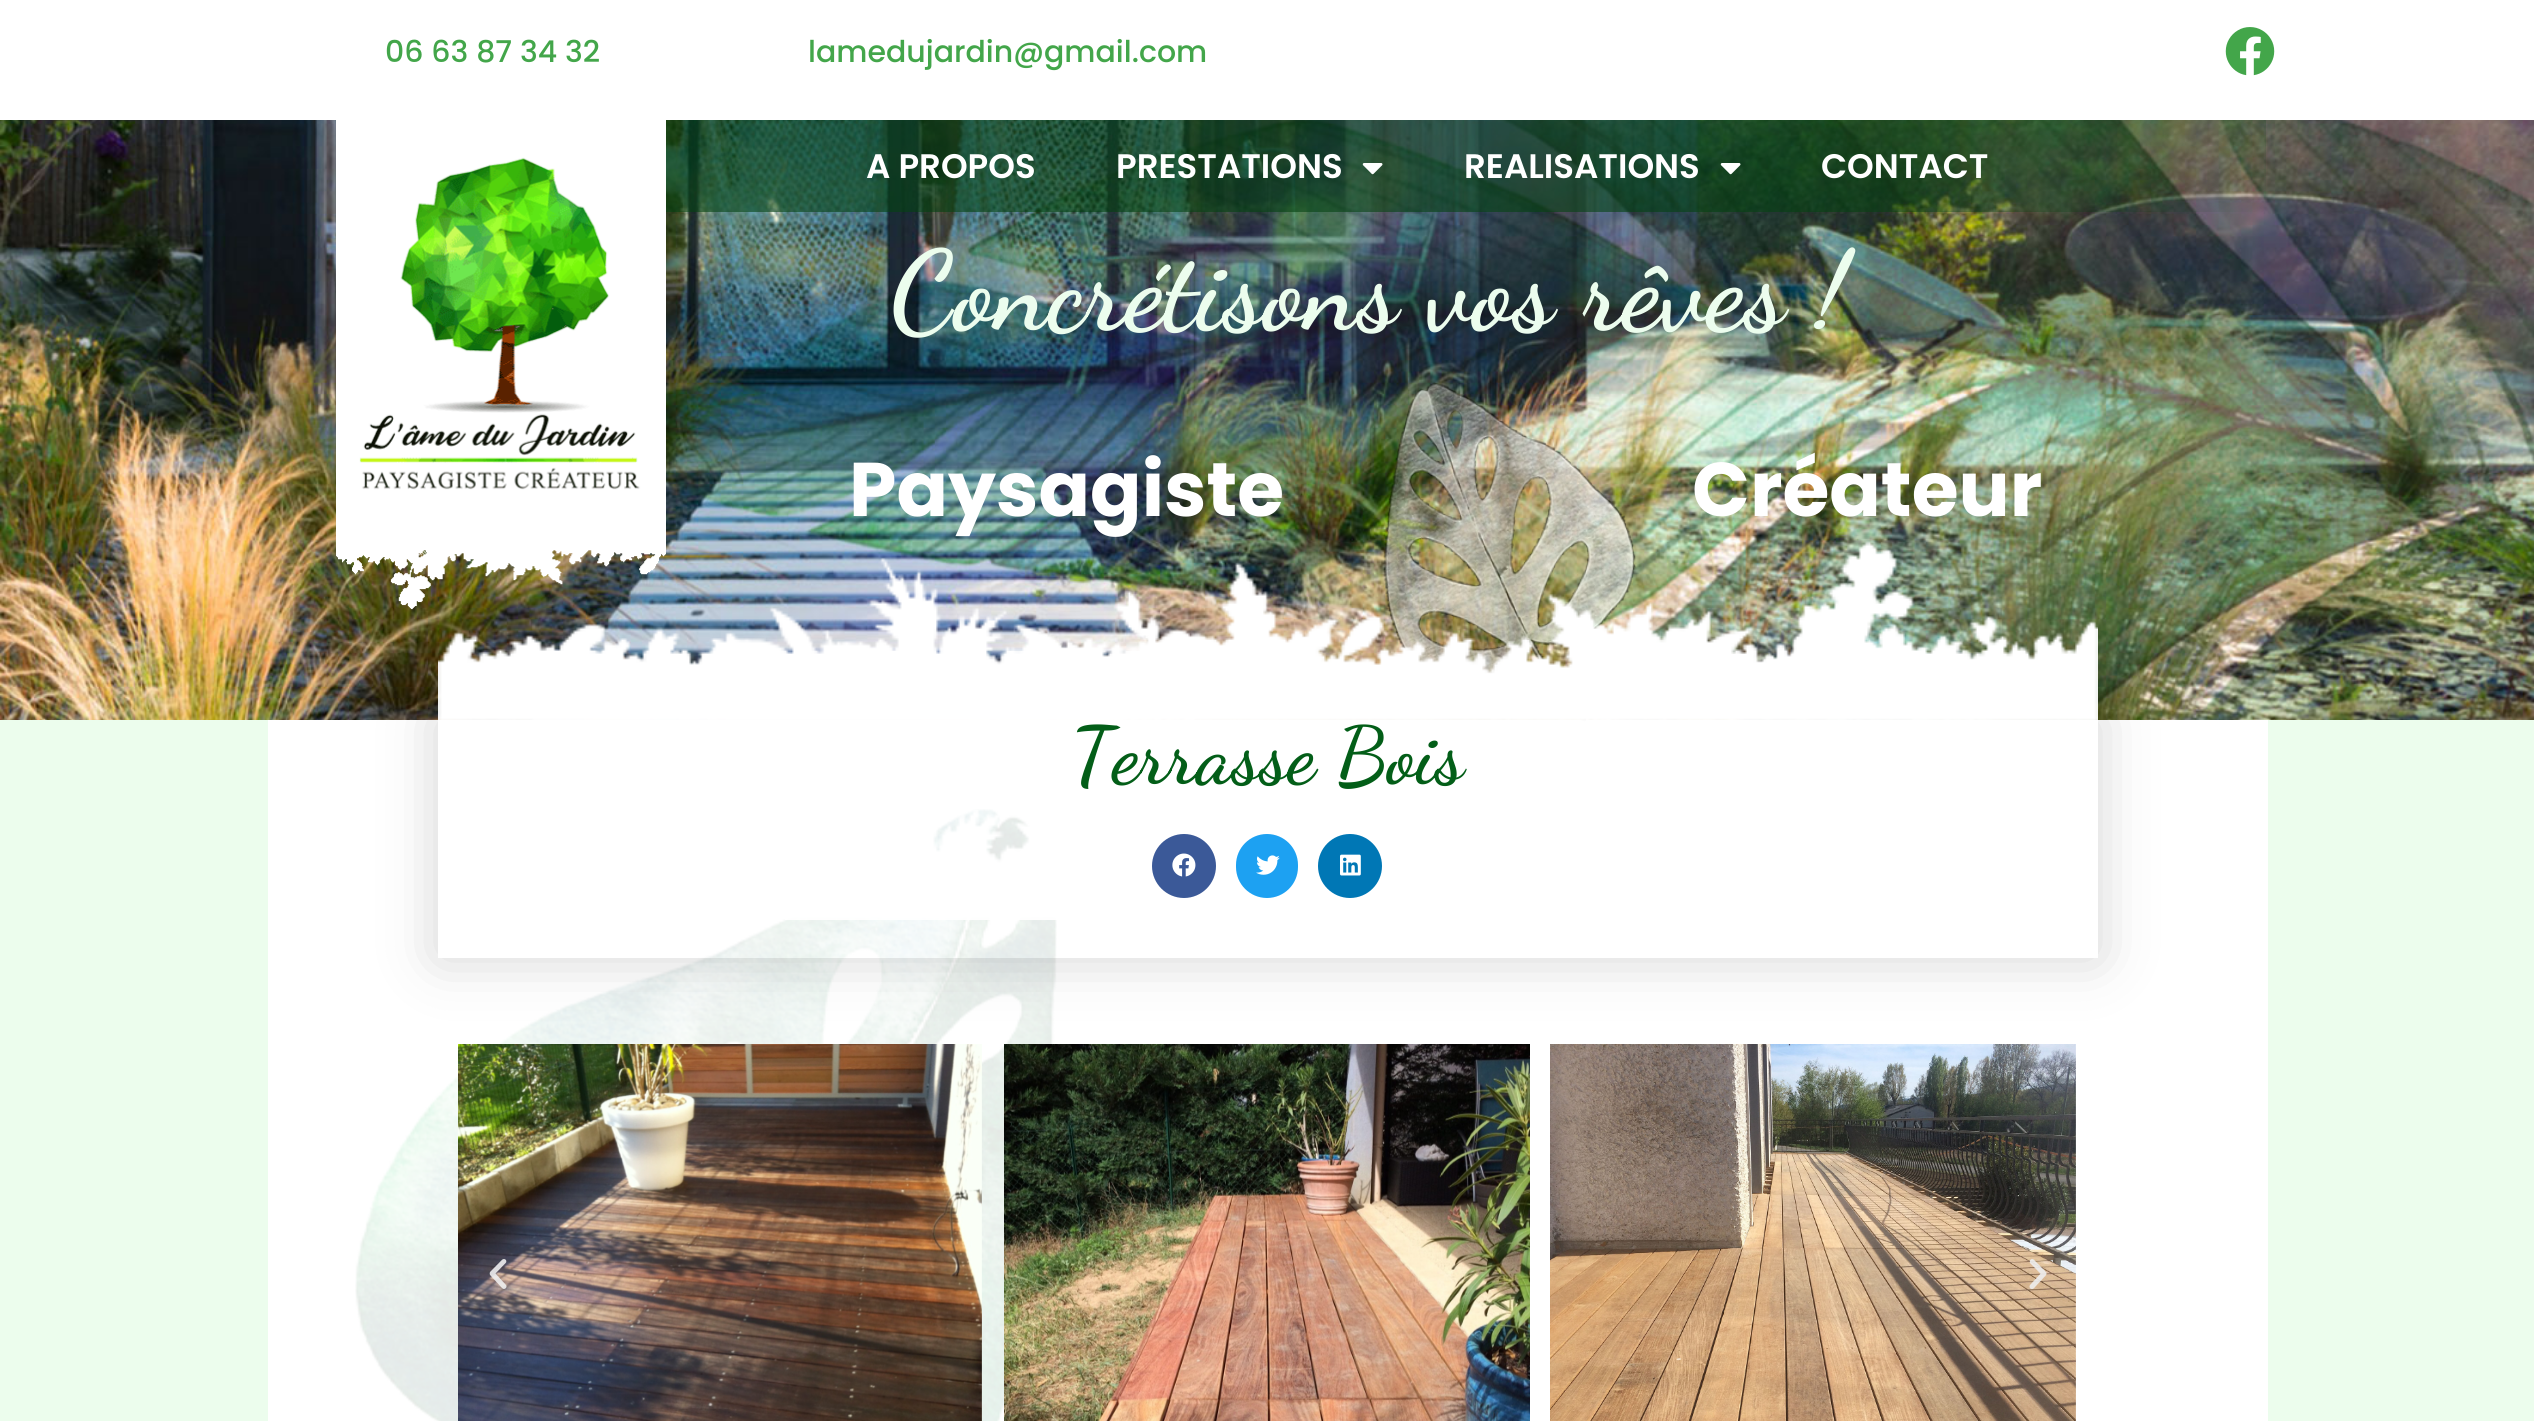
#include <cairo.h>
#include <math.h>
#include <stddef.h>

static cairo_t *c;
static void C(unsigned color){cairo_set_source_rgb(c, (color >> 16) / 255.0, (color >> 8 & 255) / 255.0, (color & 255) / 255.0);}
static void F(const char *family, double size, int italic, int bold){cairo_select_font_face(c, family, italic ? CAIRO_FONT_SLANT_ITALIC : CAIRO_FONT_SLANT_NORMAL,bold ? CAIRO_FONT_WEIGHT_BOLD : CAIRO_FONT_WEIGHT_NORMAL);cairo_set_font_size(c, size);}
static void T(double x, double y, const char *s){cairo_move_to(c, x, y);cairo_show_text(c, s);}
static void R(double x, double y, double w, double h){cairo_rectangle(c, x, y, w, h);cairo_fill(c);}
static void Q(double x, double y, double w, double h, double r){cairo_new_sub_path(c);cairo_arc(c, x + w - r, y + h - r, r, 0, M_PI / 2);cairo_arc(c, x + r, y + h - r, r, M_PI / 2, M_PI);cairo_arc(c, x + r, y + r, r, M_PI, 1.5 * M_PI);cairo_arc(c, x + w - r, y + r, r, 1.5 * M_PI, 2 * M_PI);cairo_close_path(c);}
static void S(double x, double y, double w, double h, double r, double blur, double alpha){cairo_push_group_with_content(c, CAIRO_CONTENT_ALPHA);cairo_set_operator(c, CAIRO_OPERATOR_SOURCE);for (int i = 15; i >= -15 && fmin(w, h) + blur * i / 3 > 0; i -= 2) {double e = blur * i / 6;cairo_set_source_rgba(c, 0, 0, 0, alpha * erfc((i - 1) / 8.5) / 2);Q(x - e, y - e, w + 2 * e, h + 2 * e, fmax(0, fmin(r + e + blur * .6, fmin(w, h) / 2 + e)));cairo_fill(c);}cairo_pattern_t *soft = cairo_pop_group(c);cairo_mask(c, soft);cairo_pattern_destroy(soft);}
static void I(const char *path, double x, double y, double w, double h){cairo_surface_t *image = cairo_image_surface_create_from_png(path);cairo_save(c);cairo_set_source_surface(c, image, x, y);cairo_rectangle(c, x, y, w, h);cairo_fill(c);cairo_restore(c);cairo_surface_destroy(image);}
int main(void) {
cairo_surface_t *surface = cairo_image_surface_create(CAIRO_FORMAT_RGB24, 2534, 1421);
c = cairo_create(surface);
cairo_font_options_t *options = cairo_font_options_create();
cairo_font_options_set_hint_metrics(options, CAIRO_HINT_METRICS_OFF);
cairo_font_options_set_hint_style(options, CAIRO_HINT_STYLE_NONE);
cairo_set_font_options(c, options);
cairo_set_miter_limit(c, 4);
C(0xecfded);
cairo_paint(c);
C(0xffffff);
R(0,0,2534,120);
F("Poppins Medium",30,0,0);
C(0x43a64a);
T(385,62,"06 63 87 34 32");
T(808,62,"lamedujardin@gmail.com");
I("1.png",2225,27,50,49);
I("2.png",0,120,2534,600);
I("3.png",336,120,330,490);
F("Poppins SemiBold",34,0,0);
C(0xffffff);
T(866,178,"A PROPOS");
T(1116,178,"PRESTATIONS");
I("4.png",1362,163,21,12);
T(1464,178,"REALISATIONS");
I("5.png",1720,163,21,12);
T(1821,178,"CONTACT");
F("Dancing Script",112,0,1);
C(0xecfdee);
T(890,328,"Concrétisons vos rêves !");
C(0xffffff);
R(268,720,2000,701);
I("6.png",1383,382,253,340);
F("Poppins",76,0,1);
T(849,516,"Paysagiste");
T(1692,516,"Créateur");
I("7.png",355,809,702,612);
I("13.png",458,1044,524,377);
I("14.png",1004,1044,526,377);
I("15.png",1550,1044,526,377);
cairo_save(c);
cairo_set_fill_rule(c,CAIRO_FILL_RULE_EVEN_ODD);
cairo_new_path(c);
cairo_move_to(c,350,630);
cairo_line_to(c,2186,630);
cairo_line_to(c,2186,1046);
cairo_line_to(c,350,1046);
cairo_close_path(c);
cairo_move_to(c,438,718);
cairo_line_to(c,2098,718);
cairo_line_to(c,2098,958);
cairo_line_to(c,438,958);
cairo_close_path(c);
cairo_clip(c);
C(0x000000);
S(438,718,1660,240,0,29,.17);
cairo_restore(c);
I("8.png",438,541,1660,181);
I("9.png",785,810,272,110);
F("Dancing Script SemiBold",80,0,0);
C(0x035e18);
T(1071,782,"Terrasse Bois");
C(0x3b5998);
cairo_new_path(c);
cairo_arc(c,1184,866,32,0,2 * M_PI);
cairo_fill(c);
I("10.png",1172,853,24,24);
C(0x1da1f2);
Q(1236,834,62,64,31);
cairo_fill(c);
I("11.png",1256,855,24,20);
C(0x0077b5);
cairo_arc(c,1350,866,32,0,2 * M_PI);
cairo_fill(c);
I("12.png",1340,854,21,22);
I("16.png",489,1259,18,30);
I("17.png",2029,1259,18,30);
cairo_surface_write_to_png(surface, "o.png");
cairo_font_options_destroy(options);
cairo_destroy(c);
cairo_surface_destroy(surface);
return 0;
}
